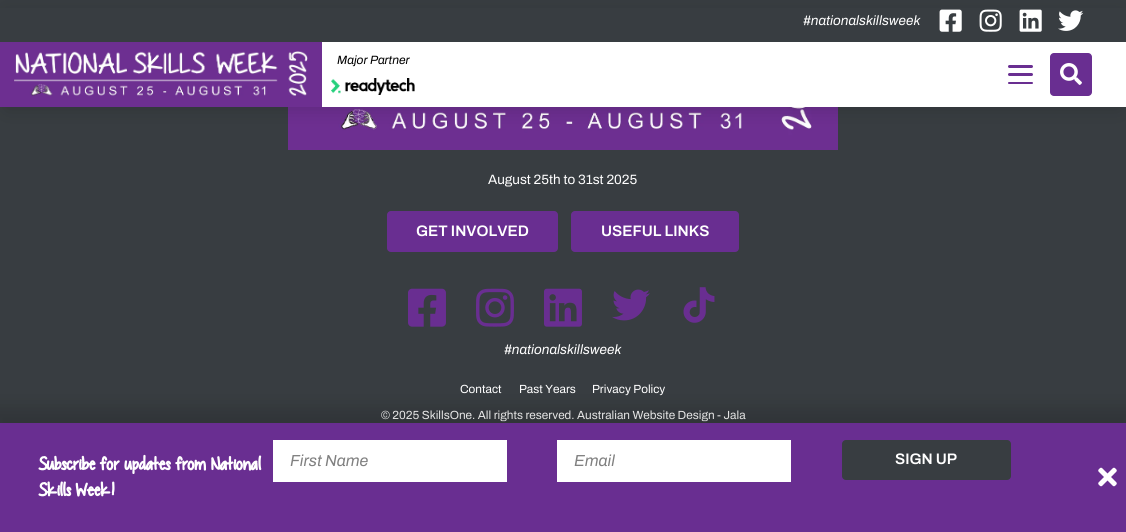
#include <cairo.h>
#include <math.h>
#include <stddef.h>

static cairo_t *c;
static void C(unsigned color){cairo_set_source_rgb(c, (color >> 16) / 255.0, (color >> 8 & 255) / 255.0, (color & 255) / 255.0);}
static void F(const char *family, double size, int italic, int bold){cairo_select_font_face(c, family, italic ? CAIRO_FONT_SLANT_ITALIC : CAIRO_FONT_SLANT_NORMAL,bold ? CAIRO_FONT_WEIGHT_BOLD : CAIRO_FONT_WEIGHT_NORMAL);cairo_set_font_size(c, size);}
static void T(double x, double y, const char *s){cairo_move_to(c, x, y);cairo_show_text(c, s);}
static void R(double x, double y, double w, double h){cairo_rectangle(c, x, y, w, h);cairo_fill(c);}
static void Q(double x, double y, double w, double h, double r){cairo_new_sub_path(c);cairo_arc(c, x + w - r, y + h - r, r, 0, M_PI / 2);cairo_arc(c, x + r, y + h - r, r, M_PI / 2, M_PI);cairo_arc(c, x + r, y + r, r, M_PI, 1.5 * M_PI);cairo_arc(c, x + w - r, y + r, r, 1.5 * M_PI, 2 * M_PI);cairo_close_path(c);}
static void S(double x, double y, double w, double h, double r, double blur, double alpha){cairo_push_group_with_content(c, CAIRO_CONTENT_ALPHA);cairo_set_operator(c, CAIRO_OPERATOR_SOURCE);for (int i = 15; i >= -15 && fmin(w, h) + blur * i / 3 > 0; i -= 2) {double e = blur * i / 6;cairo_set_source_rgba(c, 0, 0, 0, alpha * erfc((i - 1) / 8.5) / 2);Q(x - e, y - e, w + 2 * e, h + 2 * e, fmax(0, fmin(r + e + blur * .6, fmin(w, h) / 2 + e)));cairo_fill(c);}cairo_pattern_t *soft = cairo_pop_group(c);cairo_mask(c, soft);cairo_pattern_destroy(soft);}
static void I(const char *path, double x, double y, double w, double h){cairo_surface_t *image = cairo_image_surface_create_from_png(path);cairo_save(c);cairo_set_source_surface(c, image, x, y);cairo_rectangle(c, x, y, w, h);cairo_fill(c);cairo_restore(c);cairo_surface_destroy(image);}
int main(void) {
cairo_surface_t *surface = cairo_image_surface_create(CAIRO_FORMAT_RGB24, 1126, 532);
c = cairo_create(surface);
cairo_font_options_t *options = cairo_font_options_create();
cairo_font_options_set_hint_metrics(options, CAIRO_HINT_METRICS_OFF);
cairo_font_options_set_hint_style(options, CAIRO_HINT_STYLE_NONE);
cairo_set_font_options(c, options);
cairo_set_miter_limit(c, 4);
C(0x383d41);
cairo_paint(c);
I("8.png",288,107,550,43);
C(0x000000);
S(6,14,1114,95,0,10,.15);
C(0xffffff);
R(322,42,804,65);
C(0x383d41);
R(0,8,1126,34);
F("Archivo",13.5,1,0);
C(0xffffff);
T(803,25,"#nationalskillsweek");
I("1.png",939,9,23,23);
I("2.png",979,9,23,23);
I("3.png",1019,9,23,23);
I("4.png",1058,10,26,21);
I("5.png",0,42,322,65);
F("Archivo",12,1,0);
C(0x000000);
T(337,64,"Major Partner");
I("6.png",331,78,84,17);
C(0x692e91);
Q(1008,73,25,3,1.5);
cairo_fill(c);
Q(1008,65,25,3,1.5);
cairo_fill(c);
Q(1008,82,25,2,1);
cairo_fill(c);
Q(1050,53,42,43,4);
cairo_fill(c);
I("7.png",1060,63,22,22);
F("Archivo",13.5,0,0);
C(0xffffff);
T(488,184,"August 25th to 31st 2025");
C(0x692e91);
Q(387,211,171,41,4);
cairo_fill(c);
F("Archivo SemiBold",15.25,0,0);
C(0xffffff);
T(416,236,"GET INVOLVED");
C(0x692e91);
Q(571,211,168,41,4);
cairo_fill(c);
C(0xffffff);
T(601,236,"USEFUL LINKS");
I("9.png",408,288,38,39);
I("10.png",476,288,38,39);
I("11.png",544,288,38,39);
I("12.png",612,289,38,32);
I("13.png",683,287,32,36);
F("Archivo",13.5,1,0);
T(504,354,"#nationalskillsweek");
F("Archivo",11.8,0,0);
T(460,393,"Contact");
T(519,393,"Past Years");
T(592,393,"Privacy Policy");
T(381,419,"© 2025 SkillsOne. All rights reserved. Australian Website Design - Jala");
C(0x000000);
S(-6,409,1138,121,0,10,.15);
C(0x692e91);
R(0,423,1126,109);
F("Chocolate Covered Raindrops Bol",23.6,0,1);
C(0xffffff);
T(34,469,"Subscribe for updates from National");
T(34,495,"Skills Week!");
R(273,440,234,42);
F("Archivo",16,1,0);
C(0x808080);
T(290,466,"First Name");
C(0xffffff);
R(557,440,234,42);
C(0x808080);
T(574,466,"Email");
C(0x383d41);
Q(842,440,169,40,4);
cairo_fill(c);
F("Archivo SemiBold",15.25,0,0);
C(0xffffff);
T(895,464,"SIGN UP");
I("14.png",1098,467,19,20);
cairo_surface_write_to_png(surface, "o.png");
cairo_font_options_destroy(options);
cairo_destroy(c);
cairo_surface_destroy(surface);
return 0;
}
